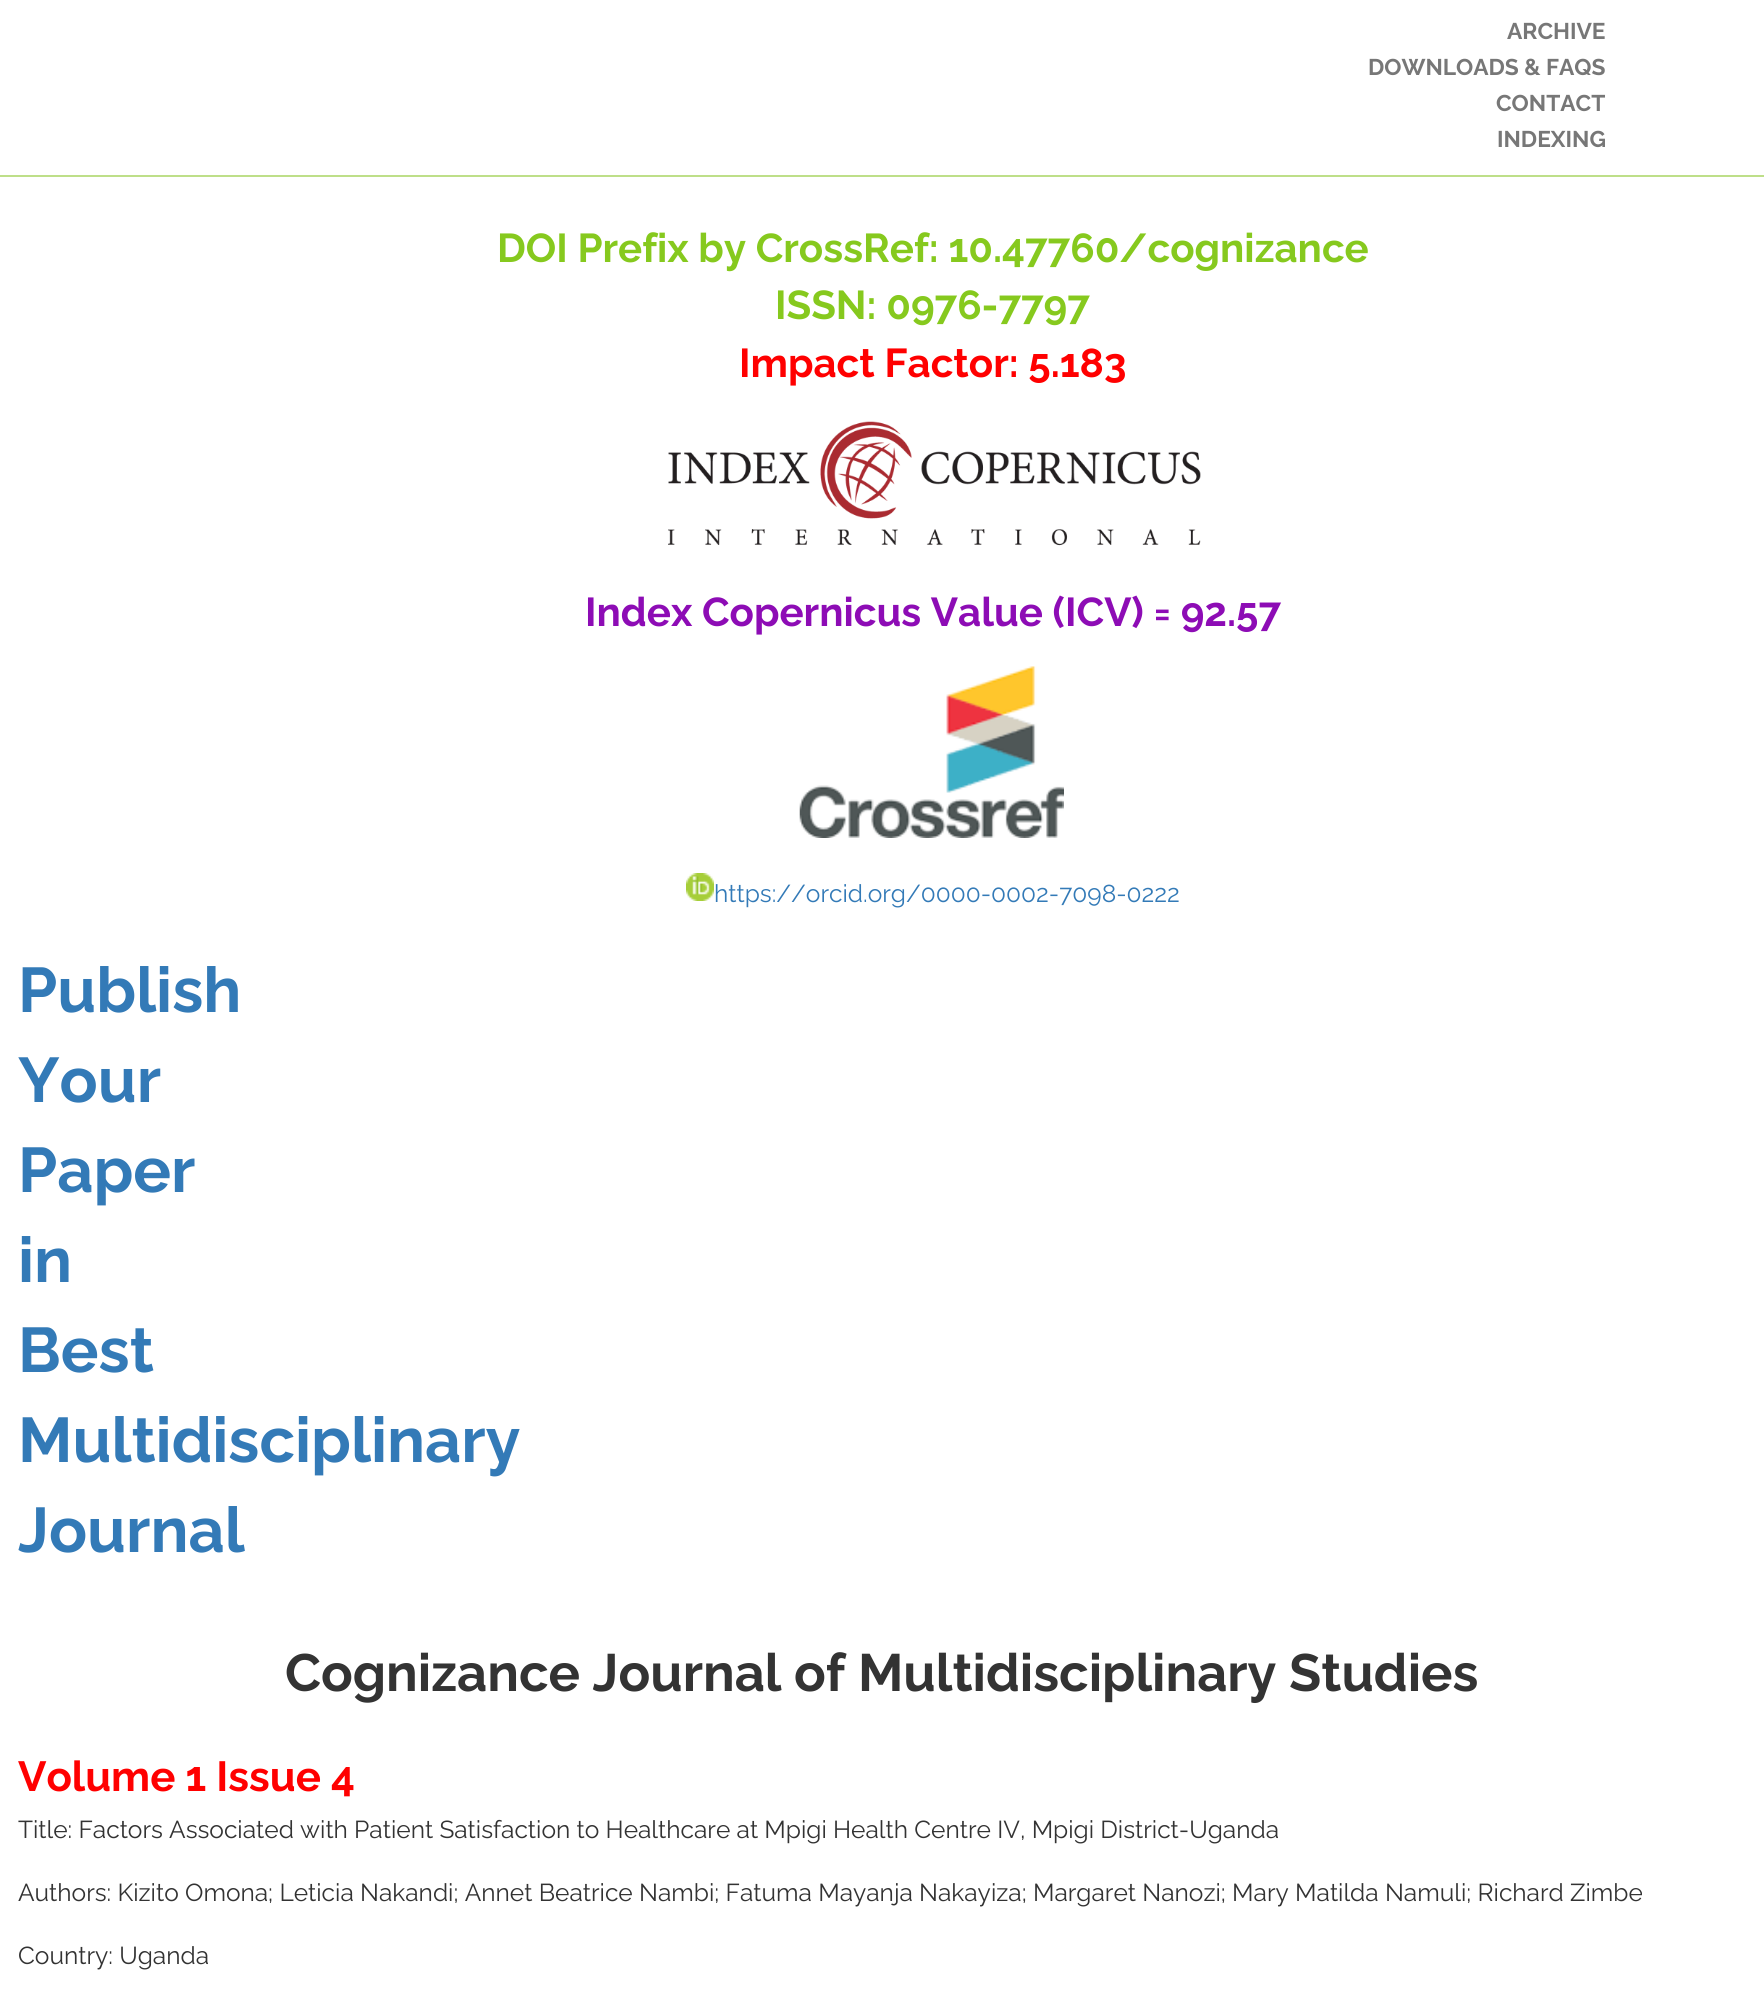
#include <cairo.h>
#include <math.h>
#include <stddef.h>

static cairo_t *c;
static void C(unsigned color){cairo_set_source_rgb(c, (color >> 16) / 255.0, (color >> 8 & 255) / 255.0, (color & 255) / 255.0);}
static void F(const char *family, double size, int italic, int bold){cairo_select_font_face(c, family, italic ? CAIRO_FONT_SLANT_ITALIC : CAIRO_FONT_SLANT_NORMAL,bold ? CAIRO_FONT_WEIGHT_BOLD : CAIRO_FONT_WEIGHT_NORMAL);cairo_set_font_size(c, size);}
static void T(double x, double y, const char *s){cairo_move_to(c, x, y);cairo_show_text(c, s);}
static void R(double x, double y, double w, double h){cairo_rectangle(c, x, y, w, h);cairo_fill(c);}
static void I(const char *path, double x, double y, double w, double h){cairo_surface_t *image = cairo_image_surface_create_from_png(path);cairo_save(c);cairo_set_source_surface(c, image, x, y);cairo_rectangle(c, x, y, w, h);cairo_fill(c);cairo_restore(c);cairo_surface_destroy(image);}
int main(void) {
cairo_surface_t *surface = cairo_image_surface_create(CAIRO_FORMAT_RGB24, 1764, 2000);
c = cairo_create(surface);
cairo_font_options_t *options = cairo_font_options_create();
cairo_font_options_set_hint_metrics(options, CAIRO_HINT_METRICS_OFF);
cairo_font_options_set_hint_style(options, CAIRO_HINT_STYLE_NONE);
cairo_set_font_options(c, options);
cairo_set_miter_limit(c, 4);
C(0xffffff);
cairo_paint(c);
C(0xbedf89);
R(0,175,1764,2);
F("Raleway Thin",22.75,0,0);
C(0x777777);
T(1507,39,"ARCHIVE");
T(1368,75,"DOWNLOADS & FAQS");
T(1496,111,"CONTACT");
T(1497,147,"INDEXING");
F("Raleway Thin",40.25,0,0);
C(0x86c91e);
T(497,262,"DOI Prefix by CrossRef: 10.47760/cognizance");
T(775,319,"ISSN: 0976-7797");
C(0xff0000);
T(739,377,"Impact Factor: 5.183");
I("1.png",668,421,533,125);
C(0x8d0cb5);
T(585,626,"Index Copernicus Value (ICV) = 92.57");
I("2.png",799,666,265,172);
I("3.png",686,873,28,28);
F("Raleway",24.5,0,0);
C(0x337ab7);
T(714,902,"https://orcid.org/0000-0002-7098-0222");
F("Raleway Thin",63,0,0);
T(18,1012,"Publish");
T(18,1102,"Your");
T(18,1192,"Paper");
T(18,1282,"in");
T(18,1372,"Best");
T(18,1462,"Multidisciplinary");
T(18,1552,"Journal");
F("Raleway Thin",52.5,0,0);
C(0x333333);
T(285,1691,"Cognizance Journal of Multidisciplinary Studies");
F("Raleway Thin",42,0,0);
C(0xff0000);
T(18,1791,"Volume 1 Issue 4");
F("Raleway",24.5,0,0);
C(0x333333);
T(18,1838,"Title: Factors Associated with Patient Satisfaction to Healthcare at Mpigi Health Centre IV, Mpigi District-Uganda");
T(18,1901,"Authors: Kizito Omona; Leticia Nakandi; Annet Beatrice Nambi; Fatuma Mayanja Nakayiza; Margaret Nanozi; Mary Matilda Namuli; Richard Zimbe");
T(18,1964,"Country: Uganda");
cairo_surface_write_to_png(surface, "o.png");
cairo_font_options_destroy(options);
cairo_destroy(c);
cairo_surface_destroy(surface);
return 0;
}
